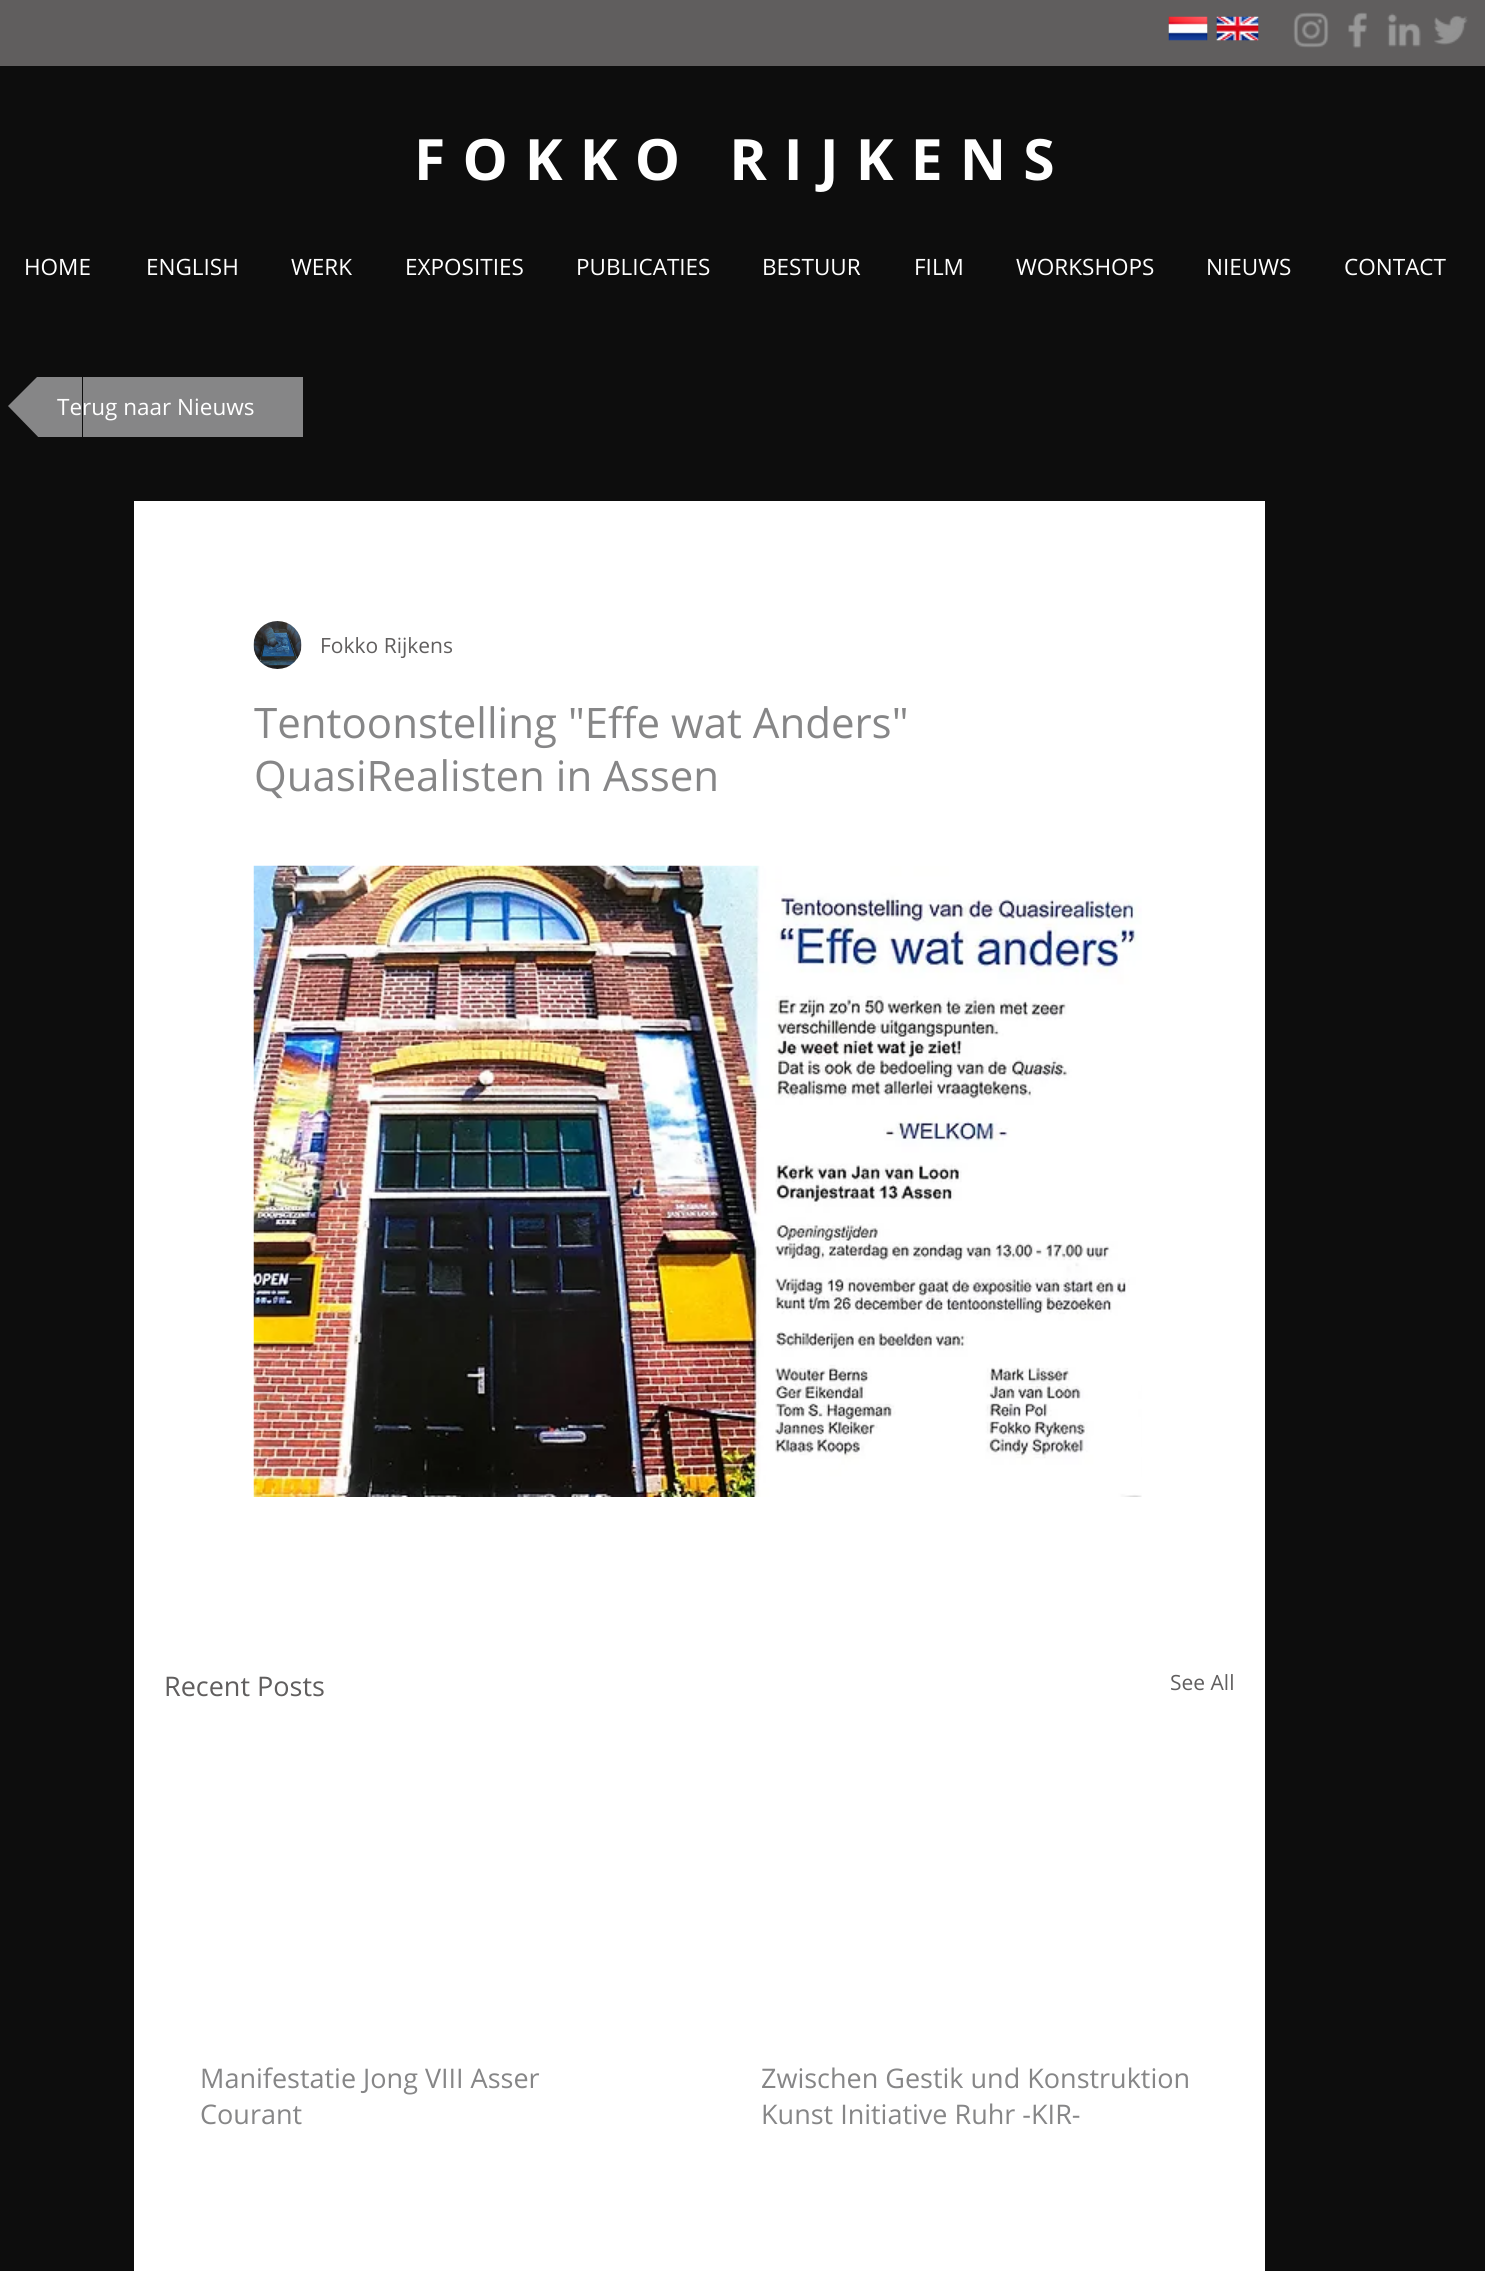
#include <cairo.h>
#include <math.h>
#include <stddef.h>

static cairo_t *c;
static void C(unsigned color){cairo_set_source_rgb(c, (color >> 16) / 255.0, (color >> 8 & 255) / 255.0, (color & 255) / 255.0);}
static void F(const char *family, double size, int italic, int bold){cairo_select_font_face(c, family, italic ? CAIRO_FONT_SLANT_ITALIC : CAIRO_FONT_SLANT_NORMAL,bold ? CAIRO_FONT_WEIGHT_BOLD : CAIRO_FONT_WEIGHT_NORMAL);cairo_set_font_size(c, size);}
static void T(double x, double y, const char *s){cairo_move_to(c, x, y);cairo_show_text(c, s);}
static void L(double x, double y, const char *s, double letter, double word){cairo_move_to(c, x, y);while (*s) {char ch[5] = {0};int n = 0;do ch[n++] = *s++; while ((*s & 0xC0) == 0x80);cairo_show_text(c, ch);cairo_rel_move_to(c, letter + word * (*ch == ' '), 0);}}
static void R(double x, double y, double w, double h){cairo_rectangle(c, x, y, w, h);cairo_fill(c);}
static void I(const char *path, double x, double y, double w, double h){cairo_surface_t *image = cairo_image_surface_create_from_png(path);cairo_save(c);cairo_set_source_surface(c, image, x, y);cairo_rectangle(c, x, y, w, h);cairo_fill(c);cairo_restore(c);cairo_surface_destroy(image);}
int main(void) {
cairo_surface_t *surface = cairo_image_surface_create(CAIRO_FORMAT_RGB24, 1485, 2271);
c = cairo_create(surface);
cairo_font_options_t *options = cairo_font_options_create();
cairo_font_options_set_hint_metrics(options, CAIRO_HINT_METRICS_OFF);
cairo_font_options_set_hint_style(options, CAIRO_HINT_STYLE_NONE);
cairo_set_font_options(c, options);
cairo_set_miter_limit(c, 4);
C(0x0d0d0d);
cairo_paint(c);
C(0x605e5e);
R(0,0,1485,66);
I("1.png",1168,16,40,25);
I("2.png",1216,16,43,25);
I("3.png",1293,12,36,36);
I("4.png",1348,12,19,36);
I("5.png",1387,13,34,34);
I("6.png",1434,15,34,30);
F("Open Sans",57,0,1);
C(0xffffff);
L(414,180,"FOKKO RIJKENS",17.1,0);
F("Open Sans",22.5,0,0);
T(24,275,"HOME");
T(146,275,"ENGLISH");
T(291,275,"WERK");
T(405,275,"EXPOSITIES");
T(576,275,"PUBLICATIES");
T(762,275,"BESTUUR");
T(914,275,"FILM");
T(1016,275,"WORKSHOPS");
T(1206,275,"NIEUWS");
T(1344,275,"CONTACT");
cairo_save(c);
cairo_rectangle(c,8,377,295,60);
cairo_clip(c);
C(0x868687);
cairo_new_path(c);
cairo_move_to(c,82,406);
cairo_line_to(c,8,406);
cairo_line_to(c,82,332);
cairo_close_path(c);
cairo_fill(c);
cairo_restore(c);
C(0x868687);
R(83,377,220,60);
cairo_save(c);
cairo_rectangle(c,8,377,295,60);
cairo_clip(c);
cairo_new_path(c);
cairo_move_to(c,8,406);
cairo_line_to(c,82,406);
cairo_line_to(c,82,482);
cairo_close_path(c);
cairo_fill(c);
cairo_restore(c);
C(0xffffff);
T(57,415,"Terug naar Nieuws");
R(134,501,1131,1770);
I("7.png",253,621,49,48);
F("Open Sans",21,0,0);
C(0x605e5e);
T(320,653,"Fokko Rijkens");
F("Open Sans",42,0,0);
C(0x868687);
T(254,738,"Tentoonstelling \"Effe wat Anders\"");
T(254,791,"QuasiRealisten in Assen");
I("8.png",253,865,889,632);
F("Open Sans",27,0,0);
C(0x605e5e);
T(164,1696,"Recent Posts");
F("Open Sans",21,0,0);
T(1170,1690,"See All");
F("Open Sans",27,0,0);
C(0x868687);
T(200,2088,"Manifestatie Jong VIII Asser");
T(200,2124,"Courant");
T(761,2088,"Zwischen Gestik und Konstruktion");
T(761,2124,"Kunst Initiative Ruhr -KIR-");
cairo_surface_write_to_png(surface, "o.png");
cairo_font_options_destroy(options);
cairo_destroy(c);
cairo_surface_destroy(surface);
return 0;
}
